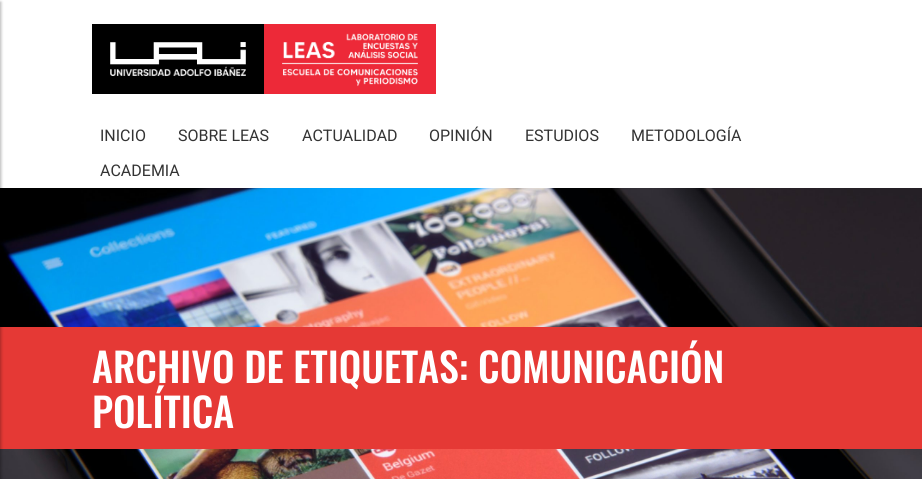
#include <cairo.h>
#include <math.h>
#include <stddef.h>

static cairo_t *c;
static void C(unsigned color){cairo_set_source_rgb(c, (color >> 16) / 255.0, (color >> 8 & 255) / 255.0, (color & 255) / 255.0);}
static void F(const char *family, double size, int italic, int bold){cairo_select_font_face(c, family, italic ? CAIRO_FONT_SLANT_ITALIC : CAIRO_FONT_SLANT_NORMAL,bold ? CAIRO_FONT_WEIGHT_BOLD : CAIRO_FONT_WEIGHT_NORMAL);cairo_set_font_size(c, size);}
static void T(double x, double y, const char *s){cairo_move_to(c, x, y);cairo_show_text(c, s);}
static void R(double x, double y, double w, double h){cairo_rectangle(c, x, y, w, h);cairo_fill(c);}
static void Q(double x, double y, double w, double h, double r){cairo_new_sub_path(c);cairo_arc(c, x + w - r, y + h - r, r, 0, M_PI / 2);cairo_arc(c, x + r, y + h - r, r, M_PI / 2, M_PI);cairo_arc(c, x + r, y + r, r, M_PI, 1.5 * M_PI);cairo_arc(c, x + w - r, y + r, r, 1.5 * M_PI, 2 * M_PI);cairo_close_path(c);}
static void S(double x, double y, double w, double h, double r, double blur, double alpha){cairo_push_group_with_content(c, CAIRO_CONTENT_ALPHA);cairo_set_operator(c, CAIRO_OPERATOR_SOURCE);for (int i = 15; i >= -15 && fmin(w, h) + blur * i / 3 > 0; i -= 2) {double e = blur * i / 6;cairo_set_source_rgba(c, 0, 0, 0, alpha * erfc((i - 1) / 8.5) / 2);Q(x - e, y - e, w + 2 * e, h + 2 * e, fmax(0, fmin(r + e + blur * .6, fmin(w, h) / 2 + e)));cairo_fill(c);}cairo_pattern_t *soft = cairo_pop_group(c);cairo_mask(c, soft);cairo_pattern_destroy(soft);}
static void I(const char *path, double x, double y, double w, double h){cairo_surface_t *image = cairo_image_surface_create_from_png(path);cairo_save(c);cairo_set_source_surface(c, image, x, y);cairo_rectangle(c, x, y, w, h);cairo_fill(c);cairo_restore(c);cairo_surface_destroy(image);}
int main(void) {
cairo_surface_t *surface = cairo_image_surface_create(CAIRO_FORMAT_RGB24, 922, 479);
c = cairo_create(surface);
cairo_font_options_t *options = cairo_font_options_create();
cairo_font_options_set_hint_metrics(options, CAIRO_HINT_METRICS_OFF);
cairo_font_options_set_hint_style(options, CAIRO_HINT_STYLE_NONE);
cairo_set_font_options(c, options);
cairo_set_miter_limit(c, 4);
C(0xffffff);
cairo_paint(c);
I("2.png",0,188,922,291);
C(0xe53935);
R(0,327,922,122);
C(0x000000);
S(-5,2,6,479,0,1.5,.3);
I("1.png",92,24,344,70);
F("Roboto",16,0,0);
C(0x333333);
T(100,141,"INICIO");
T(178,141,"SOBRE LEAS");
T(302,141,"ACTUALIDAD");
T(429,141,"OPINIÓN");
T(525,141,"ESTUDIOS");
T(631,141,"METODOLOGÍA");
T(100,176,"ACADEMIA");
F("Oswald Medium",40,0,0);
C(0xffffff);
T(92,383,"ARCHIVO DE ETIQUETAS: COMUNICACIÓN");
T(92,428,"POLÍTICA");
cairo_surface_write_to_png(surface, "o.png");
cairo_font_options_destroy(options);
cairo_destroy(c);
cairo_surface_destroy(surface);
return 0;
}
